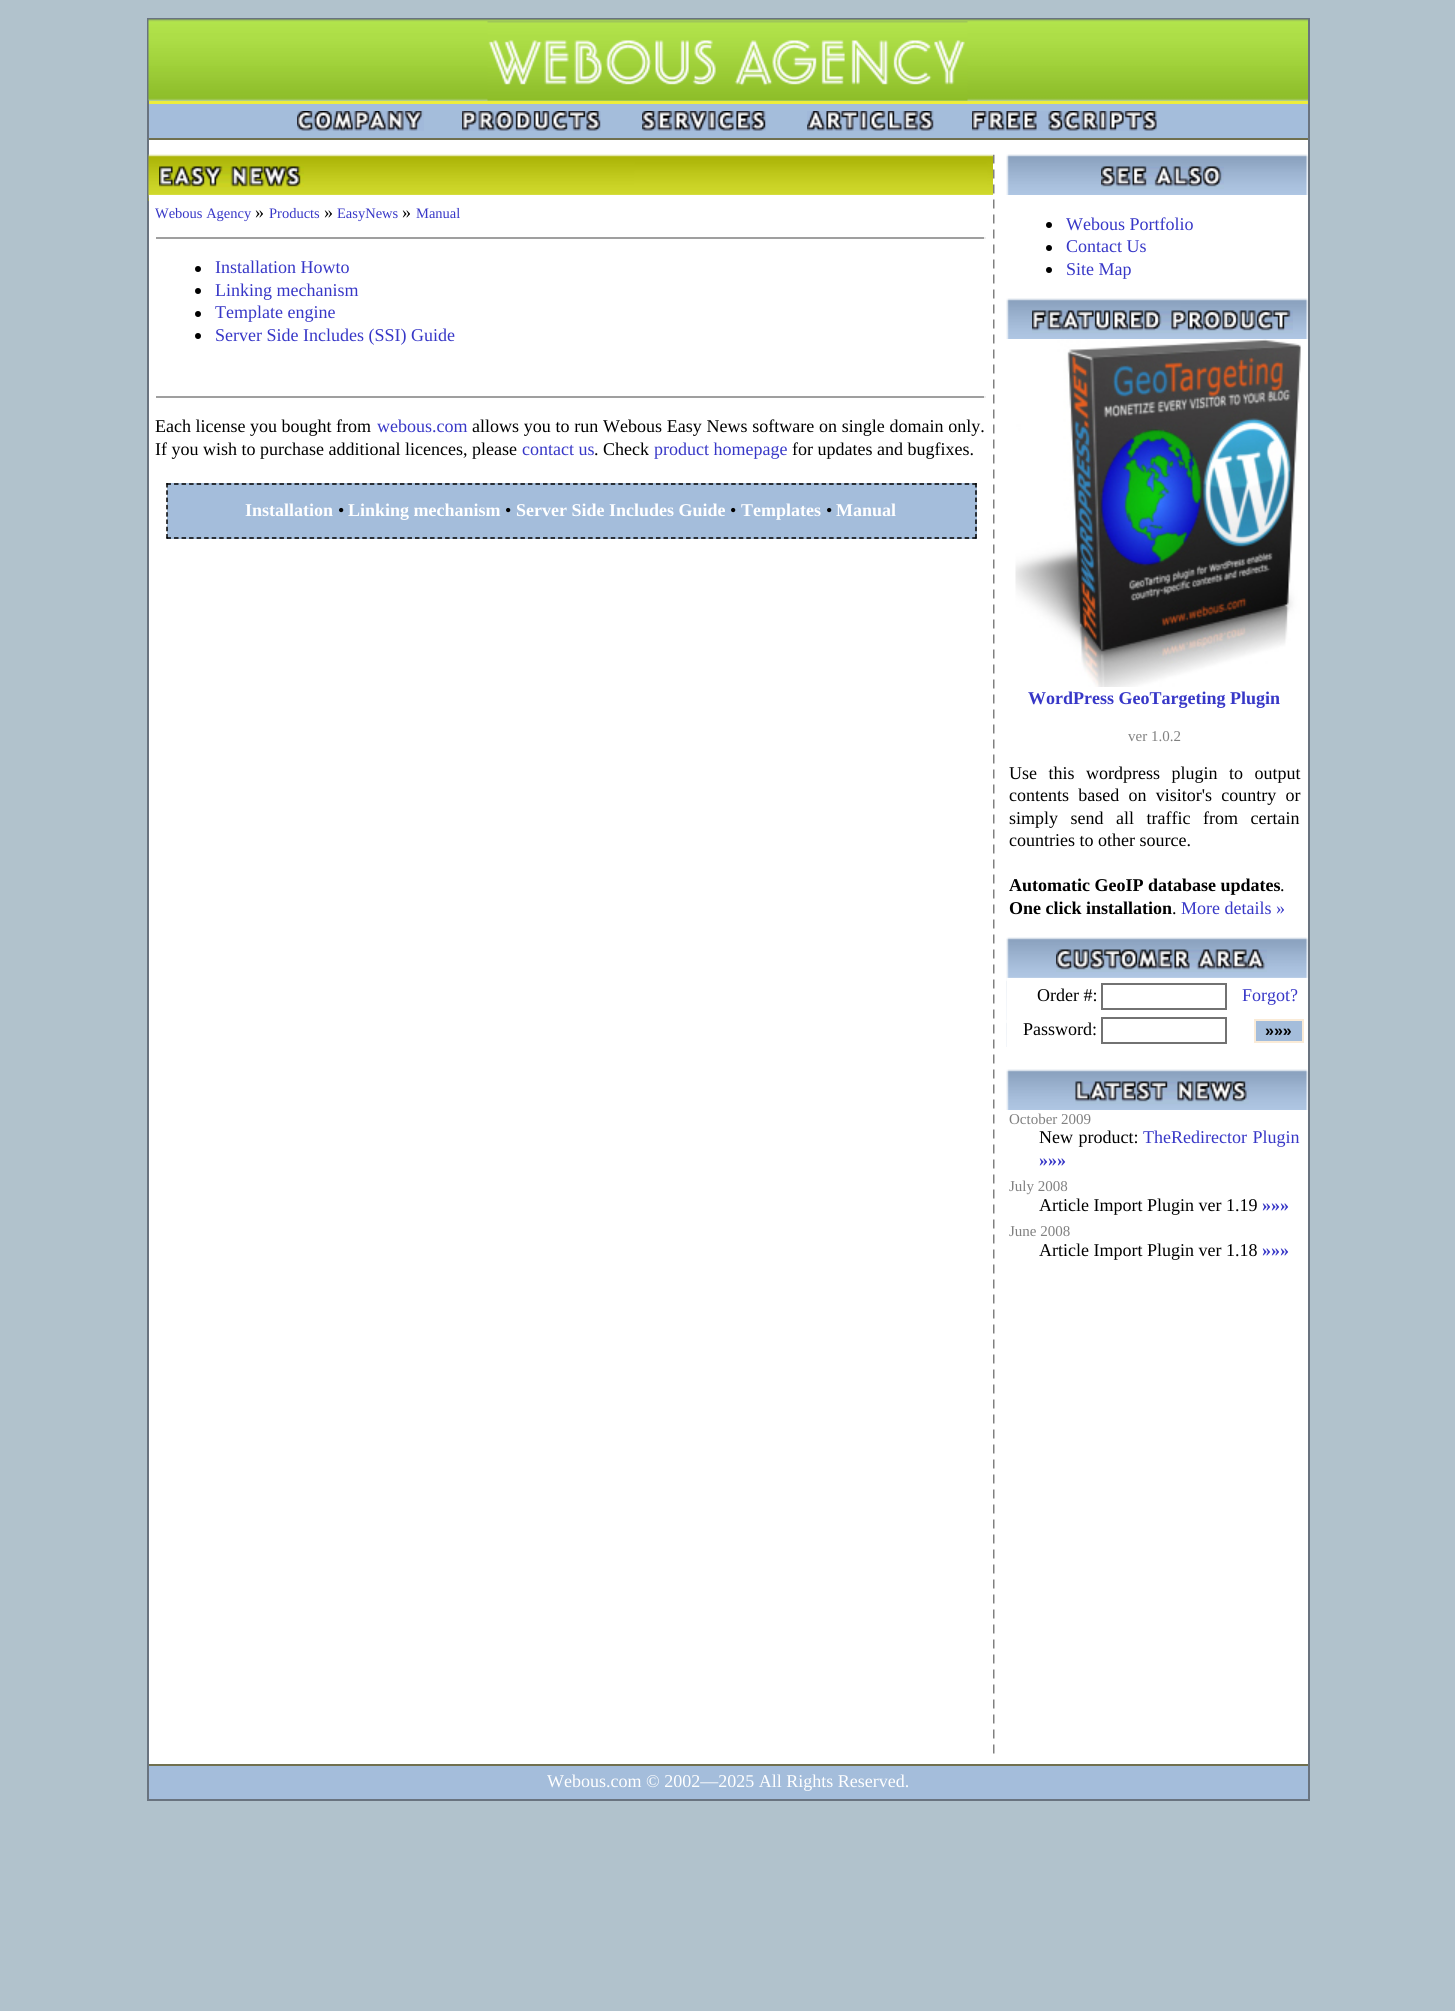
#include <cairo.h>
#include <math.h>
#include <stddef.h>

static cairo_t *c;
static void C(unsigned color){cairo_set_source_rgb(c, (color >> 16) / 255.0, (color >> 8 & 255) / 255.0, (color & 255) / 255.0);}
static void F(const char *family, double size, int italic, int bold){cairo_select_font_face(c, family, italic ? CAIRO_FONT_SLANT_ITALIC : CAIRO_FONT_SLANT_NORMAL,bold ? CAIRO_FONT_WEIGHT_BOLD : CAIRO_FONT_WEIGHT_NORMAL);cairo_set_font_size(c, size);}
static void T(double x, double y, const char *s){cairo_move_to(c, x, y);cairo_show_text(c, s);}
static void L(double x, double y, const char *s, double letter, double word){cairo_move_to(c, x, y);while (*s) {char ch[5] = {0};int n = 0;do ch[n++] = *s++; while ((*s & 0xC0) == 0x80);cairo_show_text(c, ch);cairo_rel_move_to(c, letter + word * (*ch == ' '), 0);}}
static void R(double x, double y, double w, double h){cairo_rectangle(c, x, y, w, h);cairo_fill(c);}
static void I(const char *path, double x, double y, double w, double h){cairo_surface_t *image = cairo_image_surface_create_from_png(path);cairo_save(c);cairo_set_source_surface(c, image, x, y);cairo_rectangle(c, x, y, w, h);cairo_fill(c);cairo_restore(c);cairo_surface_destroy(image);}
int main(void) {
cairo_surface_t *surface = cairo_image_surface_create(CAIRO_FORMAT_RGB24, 1455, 2011);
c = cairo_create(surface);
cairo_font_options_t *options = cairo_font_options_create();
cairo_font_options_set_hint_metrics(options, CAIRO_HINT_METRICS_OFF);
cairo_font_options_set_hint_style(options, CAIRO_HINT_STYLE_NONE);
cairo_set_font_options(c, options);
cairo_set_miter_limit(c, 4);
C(0xb1c2cc);
cairo_paint(c);
C(0x69737f);
R(147,18,1163,2);
R(147,20,2,1779);
I("1.png",148,19,1160,82);
I("2.png",487,21,481,80);
R(1308,20,2,1779);
C(0xeded3b);
R(149,101,1159,3);
C(0xa4bddb);
R(149,104,1159,34);
I("3.png",297,111,127,20);
I("4.png",462,111,139,20);
I("5.png",642,111,124,20);
I("6.png",807,111,127,20);
I("7.png",972,111,185,20);
C(0x70704f);
R(149,138,1159,2);
C(0xffffff);
R(149,140,1159,1624);
I("8.png",148,154,845,47);
I("9.png",159,166,145,21);
R(149,195,844,6);
F("Liberation Serif",14.5,0,0);
C(0x3737c7);
T(155,218,"Webous Agency");
F("Liberation Serif",18,0,0);
C(0x000000);
T(255,218,"»");
F("Liberation Serif",14.5,0,0);
C(0x3737c7);
T(269,218,"Products");
F("Liberation Serif",18,0,0);
C(0x000000);
T(324,218,"»");
F("Liberation Serif",14.5,0,0);
C(0x3737c7);
T(337,218,"EasyNews");
F("Liberation Serif",18,0,0);
C(0x000000);
T(402,218,"»");
F("Liberation Serif",14.5,0,0);
C(0x3737c7);
T(416,218,"Manual");
C(0x9f9f9f);
R(156,237,830,2);
C(0xeeeeee);
R(984,237,2,2);
C(0x000000);
cairo_new_path(c);
cairo_arc(c,198,269,3,0,2 * M_PI);
cairo_fill(c);
F("Liberation Serif",18,0,0);
C(0x3737c7);
T(215,273,"Installation Howto");
C(0x000000);
cairo_new_path(c);
cairo_arc(c,198,291,3,0,2 * M_PI);
cairo_fill(c);
C(0x3737c7);
T(215,296,"Linking mechanism");
C(0x000000);
cairo_new_path(c);
cairo_arc(c,198,314,3,0,2 * M_PI);
cairo_fill(c);
C(0x3737c7);
T(215,318,"Template engine");
C(0x000000);
cairo_new_path(c);
cairo_arc(c,198,336,3,0,2 * M_PI);
cairo_fill(c);
C(0x3737c7);
T(215,341,"Server Side Includes (SSI) Guide");
C(0x9f9f9f);
R(156,396,830,2);
C(0xeeeeee);
R(984,396,2,2);
C(0x000000);
T(155,432,"Each license you bought from");
C(0x3737c7);
T(377,432,"webous.com");
C(0x000000);
L(472,432,"allows you to run Webous Easy News software on single domain only.",0,.25);
T(155,455,"If you wish to purchase additional licences, please");
C(0x3737c7);
T(522,455,"contact us");
C(0x000000);
T(594,455,". Check");
C(0x3737c7);
T(654,455,"product homepage");
C(0x000000);
T(792,455,"for updates and bugfixes.");
C(0xa4bddb);
R(167,483,810,56);
cairo_new_path(c);
cairo_move_to(c,166.5,484);
cairo_line_to(c,976.5,484);
C(0x000000);
cairo_set_line_width(c,1.5);
cairo_set_dash(c,(double[]){4.5,3.03},2,0);
cairo_stroke(c);
cairo_new_path(c);
cairo_move_to(c,976,483);
cairo_line_to(c,976,538.5);
cairo_set_dash(c,(double[]){4.5,2.79},2,0);
cairo_stroke(c);
cairo_new_path(c);
cairo_move_to(c,166.5,538);
cairo_line_to(c,976.5,538);
cairo_set_dash(c,(double[]){4.5,3.03},2,0);
cairo_stroke(c);
cairo_new_path(c);
cairo_move_to(c,167,483);
cairo_line_to(c,167,538.5);
cairo_set_dash(c,(double[]){4.5,2.79},2,0);
cairo_stroke(c);
F("Liberation Serif",18,0,1);
C(0xffffff);
T(245,516,"Installation");
F("Liberation Serif",18,0,0);
C(0x000000);
T(338,516,"•");
F("Liberation Serif",18,0,1);
C(0xffffff);
T(348,516,"Linking mechanism");
F("Liberation Serif",18,0,0);
C(0x000000);
T(505,516,"•");
F("Liberation Serif",18,0,1);
C(0xffffff);
T(516,516,"Server Side Includes Guide");
F("Liberation Serif",18,0,0);
C(0x000000);
T(730,516,"•");
F("Liberation Serif",18,0,1);
C(0xffffff);
T(741,516,"Templates");
F("Liberation Serif",18,0,0);
C(0x000000);
T(826,516,"•");
F("Liberation Serif",18,0,1);
C(0xffffff);
T(836,516,"Manual");
I("10.png",993,154,2,1600);
I("11.png",1006,154,302,41);
I("12.png",1101,166,123,23);
C(0x000000);
cairo_arc(c,1049,225,3,0,2 * M_PI);
cairo_fill(c);
F("Liberation Serif",18,0,0);
C(0x3737c7);
T(1066,230,"Webous Portfolio");
C(0x000000);
cairo_new_path(c);
cairo_arc(c,1049,248,3,0,2 * M_PI);
cairo_fill(c);
C(0x3737c7);
T(1066,252,"Contact Us");
C(0x000000);
cairo_new_path(c);
cairo_arc(c,1049,270,3,0,2 * M_PI);
cairo_fill(c);
C(0x3737c7);
T(1066,275,"Site Map");
I("11.png",1006,298,302,41);
I("13.png",1032,310,261,23);
I("14.png",1015,339,286,348);
F("Liberation Serif",18,0,1);
T(1028,704,"WordPress GeoTargeting Plugin");
F("Liberation Serif",15,0,0);
C(0x808080);
T(1128,741,"ver 1.0.2");
F("Liberation Serif",18,0,0);
C(0x000000);
L(1009,779,"Use this wordpress plugin to output",0,7);
L(1009,801,"contents based on visitor's country or",0,4.75);
L(1009,824,"simply send all traffic from certain",0,8);
T(1009,846,"countries to other source.");
F("Liberation Serif",18,0,1);
T(1009,891,"Automatic GeoIP database updates");
F("Liberation Serif",18,0,0);
T(1280,891,".");
F("Liberation Serif",18,0,1);
T(1009,914,"One click installation");
F("Liberation Serif",18,0,0);
T(1172,914,".");
C(0x3737c7);
T(1181,914,"More details »");
I("15.png",1006,937,302,110);
I("16.png",1056,949,211,23);
C(0xffffff);
R(1007,978,301,69);
C(0x000000);
T(1037,1001,"Order #:");
cairo_rectangle(c,1102,984,124,25);
C(0x727272);
cairo_set_line_width(c,2);
cairo_set_dash(c,NULL,0,0);
cairo_stroke(c);
C(0x3737c7);
T(1242,1001,"Forgot?");
C(0x000000);
T(1023,1035,"Password:");
cairo_rectangle(c,1102,1018,124,25);
C(0x727272);
cairo_stroke(c);
C(0xa4bddb);
cairo_rectangle(c,1255,1020,48,22);
cairo_fill_preserve(c);
C(0xfaebd7);
cairo_stroke(c);
F("Liberation Sans",16,0,1);
C(0x000000);
T(1265,1036,"»»»");
I("11.png",1006,1069,302,41);
I("17.png",1075,1081,174,23);
F("Liberation Serif",15,0,0);
C(0x808080);
T(1009,1124,"October 2009");
F("Liberation Serif",18,0,0);
C(0x000000);
L(1039,1143,"New product:",0,1);
C(0x3737c7);
L(1143,1143,"TheRedirector Plugin",0,1);
F("Liberation Serif",18,0,1);
T(1039,1166,"»»»");
F("Liberation Serif",15,0,0);
C(0x808080);
T(1009,1191,"July 2008");
F("Liberation Serif",18,0,0);
C(0x000000);
T(1039,1211,"Article Import Plugin ver 1.19");
F("Liberation Serif",18,0,1);
C(0x3737c7);
T(1262,1211,"»»»");
F("Liberation Serif",15,0,0);
C(0x808080);
T(1009,1236,"June 2008");
F("Liberation Serif",18,0,0);
C(0x000000);
T(1039,1256,"Article Import Plugin ver 1.18");
F("Liberation Serif",18,0,1);
C(0x3737c7);
T(1262,1256,"»»»");
C(0x70704f);
R(149,1764,1159,2);
C(0xa4bddb);
R(149,1766,1159,33);
F("Liberation Serif",18,0,0);
C(0xffffff);
T(547,1787,"Webous.com © 2002—2025 All Rights Reserved.");
C(0x69737f);
R(147,1799,1163,2);
cairo_surface_write_to_png(surface, "o.png");
cairo_font_options_destroy(options);
cairo_destroy(c);
cairo_surface_destroy(surface);
return 0;
}
